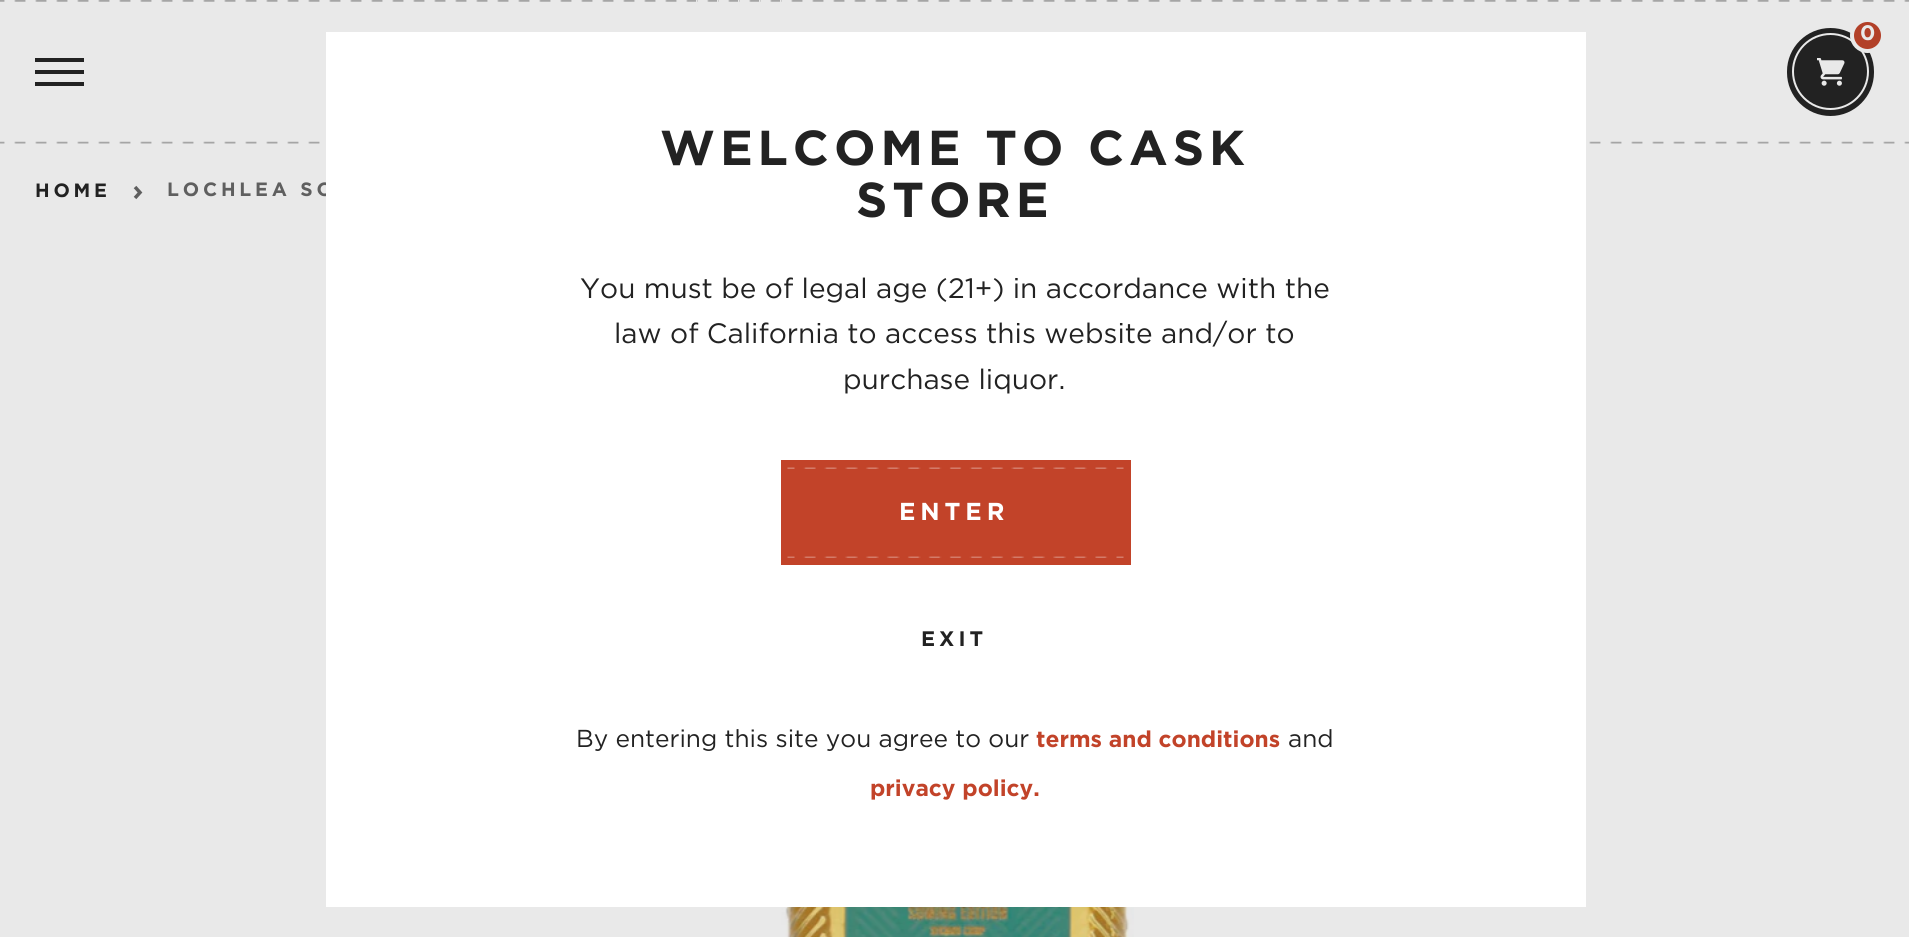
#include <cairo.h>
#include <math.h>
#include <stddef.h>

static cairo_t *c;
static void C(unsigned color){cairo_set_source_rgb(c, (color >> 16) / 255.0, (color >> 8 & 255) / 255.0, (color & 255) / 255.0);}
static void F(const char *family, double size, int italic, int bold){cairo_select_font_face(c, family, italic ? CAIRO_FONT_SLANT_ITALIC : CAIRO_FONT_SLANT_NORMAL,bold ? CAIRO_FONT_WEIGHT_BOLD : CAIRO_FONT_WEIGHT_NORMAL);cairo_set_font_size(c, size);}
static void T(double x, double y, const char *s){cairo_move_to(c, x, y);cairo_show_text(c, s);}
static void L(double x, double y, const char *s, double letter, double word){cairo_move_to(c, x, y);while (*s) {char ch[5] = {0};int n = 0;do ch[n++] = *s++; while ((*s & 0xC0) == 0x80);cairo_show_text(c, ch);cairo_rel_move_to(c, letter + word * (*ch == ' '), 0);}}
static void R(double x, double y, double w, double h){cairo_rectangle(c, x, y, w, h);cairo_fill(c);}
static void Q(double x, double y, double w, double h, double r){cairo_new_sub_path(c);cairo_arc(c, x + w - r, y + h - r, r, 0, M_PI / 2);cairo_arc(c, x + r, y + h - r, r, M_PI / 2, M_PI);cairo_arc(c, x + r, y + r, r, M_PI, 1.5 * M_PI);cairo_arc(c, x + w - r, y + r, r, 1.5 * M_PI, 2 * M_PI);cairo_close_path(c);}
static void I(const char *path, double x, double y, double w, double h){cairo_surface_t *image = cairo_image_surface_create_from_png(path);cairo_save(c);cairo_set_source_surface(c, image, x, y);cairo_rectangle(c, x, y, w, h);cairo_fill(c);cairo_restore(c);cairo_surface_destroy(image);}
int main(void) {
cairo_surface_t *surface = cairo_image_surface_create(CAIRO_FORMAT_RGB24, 1909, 937);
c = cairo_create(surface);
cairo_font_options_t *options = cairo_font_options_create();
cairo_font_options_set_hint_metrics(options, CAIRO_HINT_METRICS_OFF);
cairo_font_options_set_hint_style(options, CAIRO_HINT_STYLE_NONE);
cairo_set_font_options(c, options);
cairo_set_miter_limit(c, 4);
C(0xe9e9e9);
cairo_paint(c);
I("1.png",0,0,1909,144);
C(0x222222);
Q(1787,28,87,88,43.5);
cairo_fill(c);
cairo_arc(c,1830.5,71.5,37.5,0,2 * M_PI);
C(0xe9e9e9);
cairo_stroke(c);
C(0xb24028);
cairo_arc(c,1867.5,35.5,15.5,0,2 * M_PI);
cairo_fill_preserve(c);
C(0xe9e9e9);
cairo_set_line_width(c,4);
cairo_stroke(c);
F("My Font",21,0,1);
T(1860,40,"0");
I("2.png",1817,58,28,28);
C(0x222222);
R(35,58,49,4);
R(35,70,49,4);
R(35,82,49,4);
F("My Font",19.25,0,1);
L(35,197,"HOME",3.8,0);
cairo_new_path(c);
cairo_move_to(c,135,198);
cairo_line_to(c,140,192.5);
cairo_line_to(c,135,187);
C(0x5f5f5f);
cairo_set_line_width(c,3.5);
cairo_stroke(c);
L(167,196,"LOCHLEA SO",3.8,0);
I("3.png",777,907,357,30);
C(0xffffff);
R(326,32,1260,875);
F("My Font",49,0,1);
C(0x222222);
L(660,165,"WELCOME TO CASK",4.9,0);
L(856,217,"STORE",4.9,0);
F("Gotham",28,0,0);
T(580,298,"You must be of legal age (21+) in accordance with the");
T(614,343,"law of California to access this website and/or to");
T(843,389,"purchase liquor.");
C(0xc24329);
R(781,460,350,105);
I("4.png",787,467,337,91);
F("My Font",24.5,0,1);
C(0xffffff);
L(899,520,"ENTER",4.9,0);
F("My Font",21,0,1);
C(0x222222);
L(921,646,"EXIT",4,0);
F("Gotham",24.5,0,0);
T(576,747,"By entering this site you agree to our");
F("My Font",22.75,0,1);
C(0xc24329);
T(1036,747,"terms and conditions");
F("Gotham",24.5,0,0);
C(0x222222);
T(1288,747,"and");
F("My Font",22.75,0,1);
C(0xc24329);
T(870,796,"privacy policy.");
cairo_surface_write_to_png(surface, "o.png");
cairo_font_options_destroy(options);
cairo_destroy(c);
cairo_surface_destroy(surface);
return 0;
}
